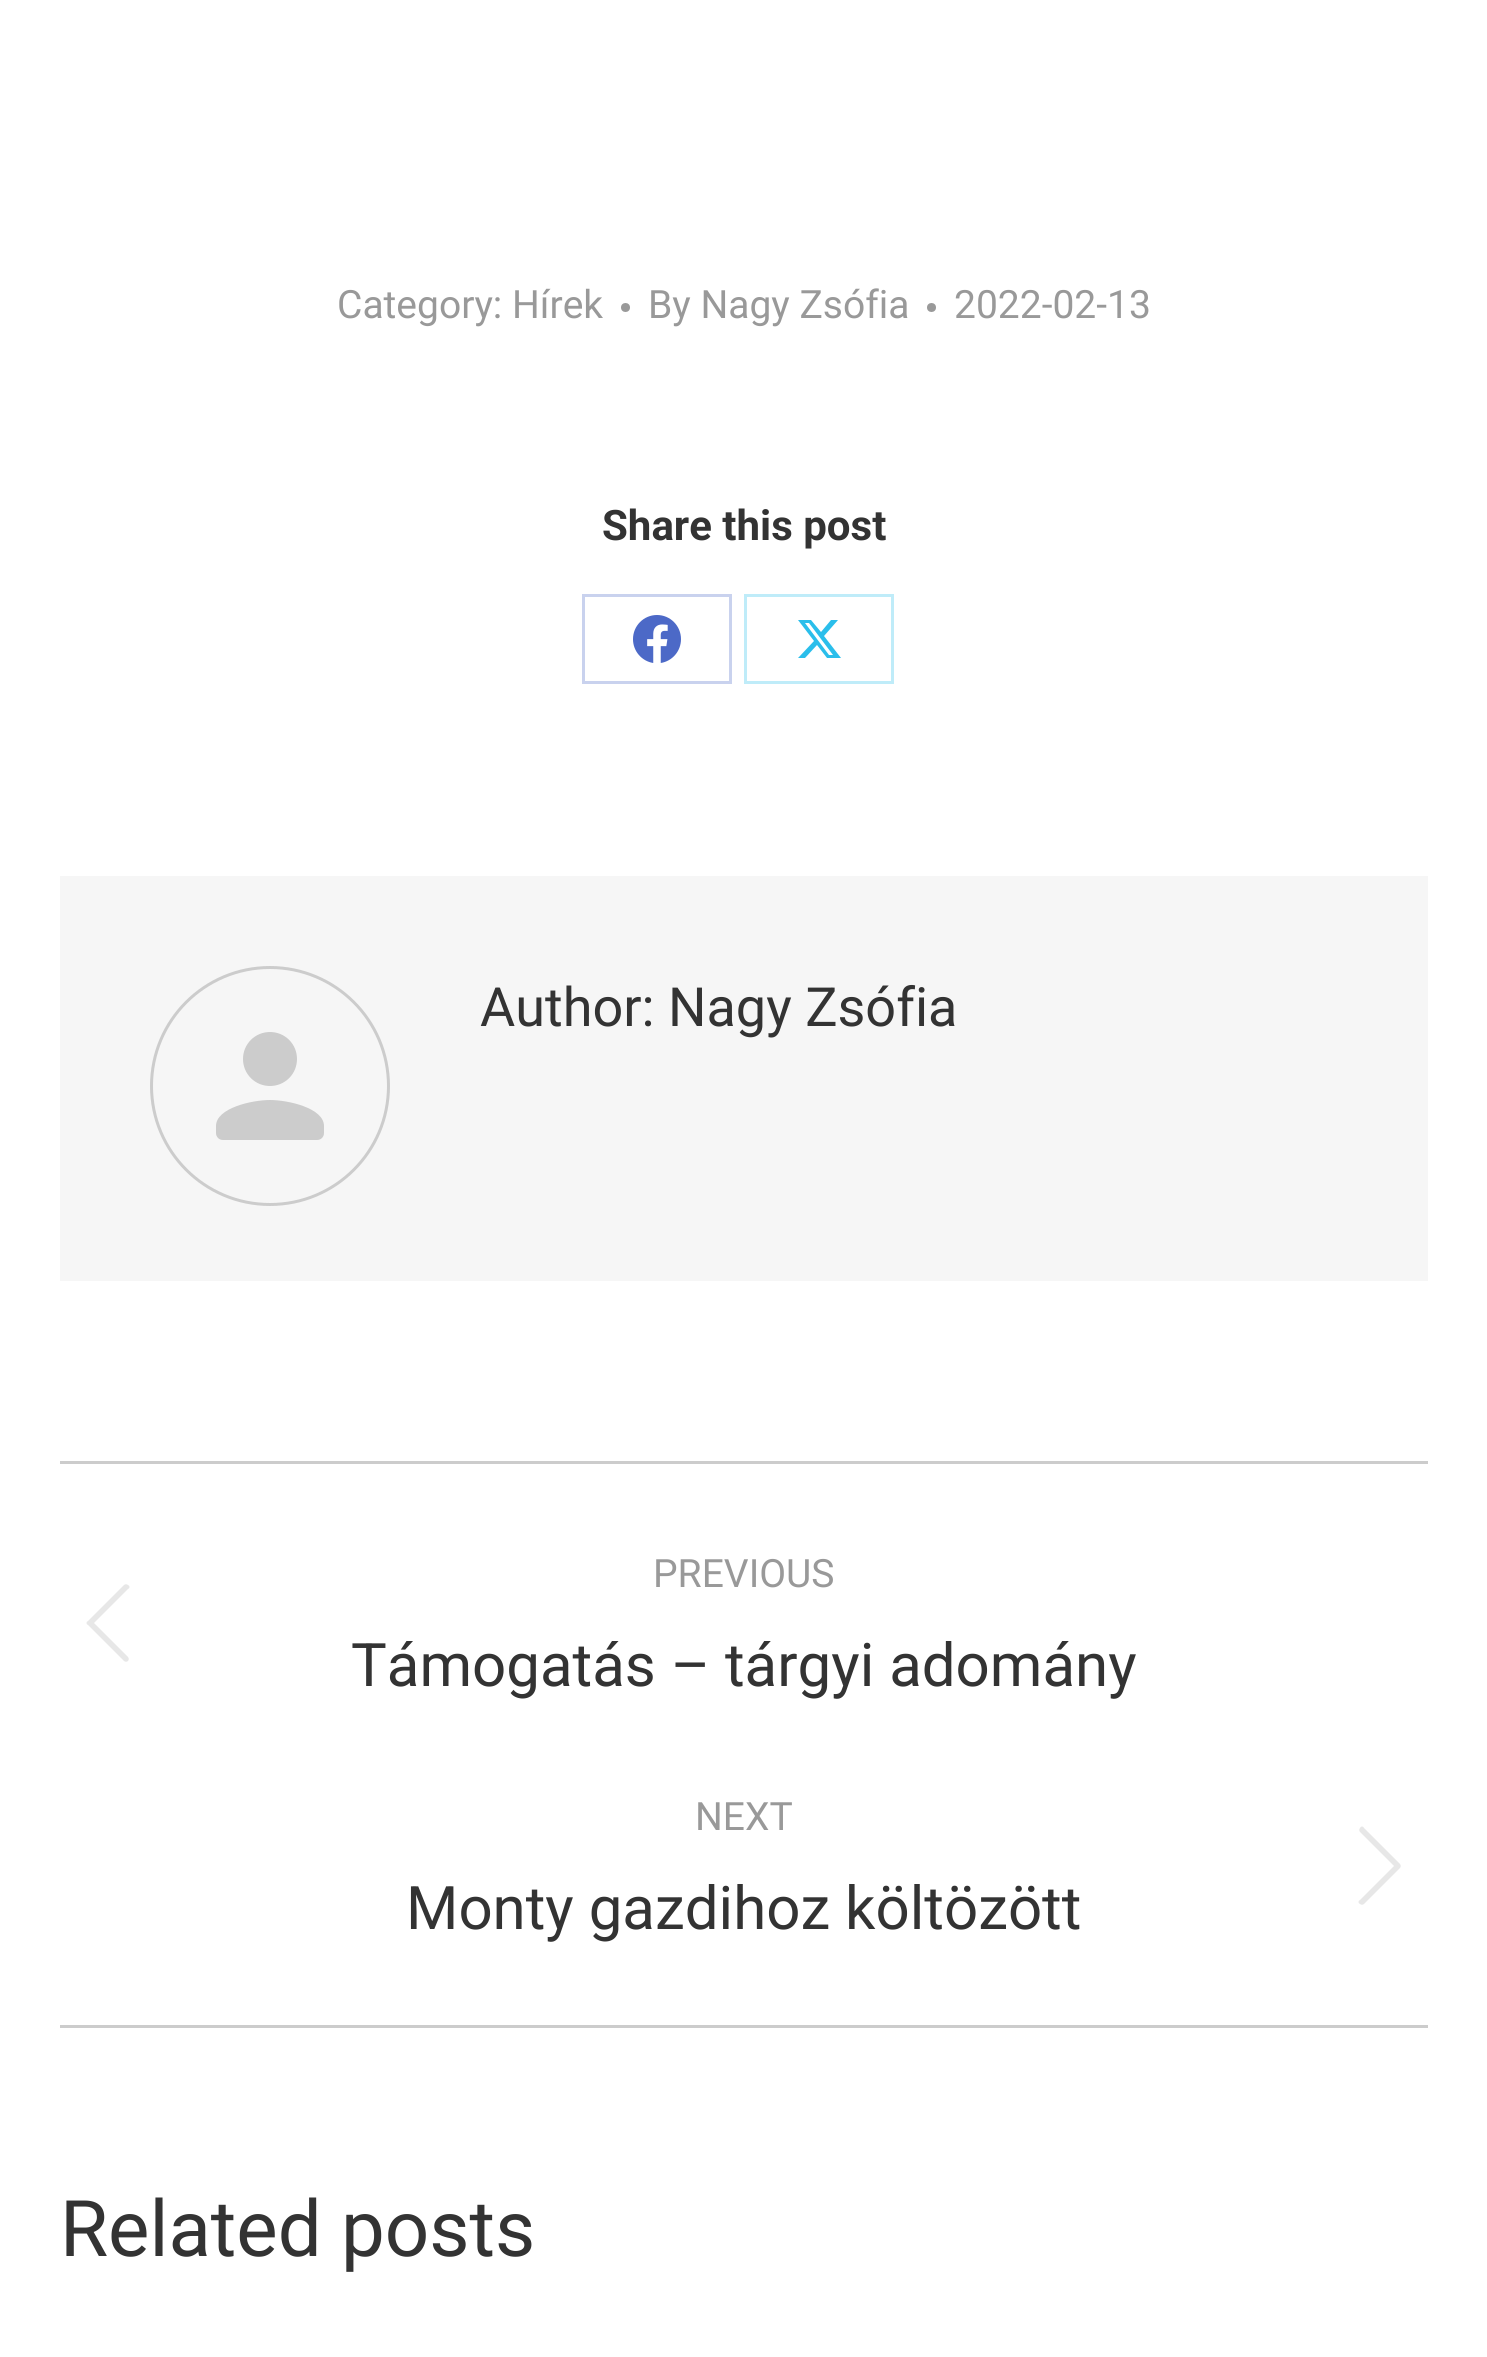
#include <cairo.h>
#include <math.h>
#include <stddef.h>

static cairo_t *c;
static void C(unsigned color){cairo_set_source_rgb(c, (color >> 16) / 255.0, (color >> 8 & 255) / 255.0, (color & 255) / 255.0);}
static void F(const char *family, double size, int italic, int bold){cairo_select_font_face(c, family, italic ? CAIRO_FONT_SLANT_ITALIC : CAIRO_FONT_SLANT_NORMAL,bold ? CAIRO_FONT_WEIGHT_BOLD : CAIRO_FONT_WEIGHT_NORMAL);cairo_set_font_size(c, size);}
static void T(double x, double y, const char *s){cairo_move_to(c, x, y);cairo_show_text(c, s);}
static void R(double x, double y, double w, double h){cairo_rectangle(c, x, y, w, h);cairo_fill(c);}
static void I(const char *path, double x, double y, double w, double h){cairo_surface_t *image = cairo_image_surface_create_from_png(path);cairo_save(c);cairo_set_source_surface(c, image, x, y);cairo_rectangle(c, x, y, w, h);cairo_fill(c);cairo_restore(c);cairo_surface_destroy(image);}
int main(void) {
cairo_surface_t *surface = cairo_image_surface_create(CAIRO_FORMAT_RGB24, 1487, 2357);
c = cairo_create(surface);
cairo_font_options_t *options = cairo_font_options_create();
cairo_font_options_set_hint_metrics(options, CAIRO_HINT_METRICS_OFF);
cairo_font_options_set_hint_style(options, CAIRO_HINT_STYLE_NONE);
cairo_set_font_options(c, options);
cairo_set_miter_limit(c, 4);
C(0xffffff);
cairo_paint(c);
F("Roboto",39,0,0);
C(0x999999);
T(337,318,"Category: Hírek");
cairo_new_path(c);
cairo_arc(c,625.5,307.5,4.5,0,2 * M_PI);
cairo_fill(c);
T(648,318,"By Nagy Zsófia");
cairo_new_path(c);
cairo_arc(c,931.5,307.5,4.5,0,2 * M_PI);
cairo_fill(c);
T(954,318,"2022-02-13");
F("Roboto",42,0,1);
C(0x333333);
T(602,540,"Share this post");
cairo_rectangle(c,583.5,595.5,147,87);
C(0xc9d2ee);
cairo_set_line_width(c,3);
cairo_stroke(c);
I("1.png",633,615,48,48);
cairo_rectangle(c,745.5,595.5,147,87);
C(0xbfecf9);
cairo_stroke(c);
C(0x2abeeb);
cairo_new_path(c);
cairo_move_to(c,831,620);
cairo_line_to(c,838,620);
cairo_line_to(c,824,636);
cairo_line_to(c,841,658);
cairo_line_to(c,827,658);
cairo_line_to(c,817,645);
cairo_line_to(c,805,658);
cairo_line_to(c,798,658);
cairo_line_to(c,814,641);
cairo_line_to(c,798,620);
cairo_line_to(c,811,620);
cairo_line_to(c,821,632);
cairo_close_path(c);
cairo_move_to(c,829,655);
cairo_line_to(c,833,655);
cairo_line_to(c,809,623);
cairo_line_to(c,805,623);
cairo_close_path(c);
cairo_fill(c);
C(0xf6f6f6);
R(60,876,1368,405);
cairo_arc(c,270,1086,118.5,0,2 * M_PI);
C(0xcccccc);
cairo_stroke(c);
cairo_new_path(c);
cairo_move_to(c,270,1086);
cairo_curve_to(c,285,1086,297,1074,297,1059);
cairo_curve_to(c,297,1044,285,1032,270,1032);
cairo_curve_to(c,255,1032,243,1044,243,1059);
cairo_curve_to(c,243,1074,255,1086,270,1086);
cairo_close_path(c);
cairo_move_to(c,270,1100);
cairo_curve_to(c,252,1100,216,1108,216,1126);
cairo_line_to(c,216,1133);
cairo_curve_to(c,216,1137,219,1140,223,1140);
cairo_line_to(c,317,1140);
cairo_curve_to(c,321,1140,324,1137,324,1133);
cairo_line_to(c,324,1126);
cairo_curve_to(c,324,1108,288,1100,270,1100);
cairo_close_path(c);
cairo_fill(c);
F("Roboto",54,0,0);
C(0x333333);
T(480,1026,"Author: Nagy Zsófia");
C(0xcccccc);
R(60,1461,1368,3);
R(60,2025,1368,3);
F("Roboto",39,0,0);
C(0x999999);
T(653,1587,"PREVIOUS");
C(0xe7e7e7);
cairo_new_path(c);
cairo_move_to(c,128,1585);
cairo_curve_to(c,130,1586,130,1588,128,1589);
cairo_line_to(c,94,1623);
cairo_line_to(c,128,1657);
cairo_curve_to(c,129,1658,129,1660,128,1661);
cairo_curve_to(c,127,1662,125,1662,124,1661);
cairo_line_to(c,88,1625);
cairo_curve_to(c,86,1624,86,1622,88,1621);
cairo_line_to(c,124,1585);
cairo_curve_to(c,125,1584,127,1584,128,1585);
cairo_close_path(c);
cairo_fill(c);
F("Roboto",60,0,0);
C(0x333333);
T(351,1686,"Támogatás – tárgyi adomány");
F("Roboto",39,0,0);
C(0x999999);
T(695,1830,"NEXT");
C(0xe7e7e7);
cairo_new_path(c);
cairo_move_to(c,1360,1828);
cairo_curve_to(c,1361,1826,1363,1826,1364,1828);
cairo_line_to(c,1400,1864);
cairo_curve_to(c,1401,1865,1401,1867,1400,1868);
cairo_line_to(c,1364,1904);
cairo_curve_to(c,1363,1905,1361,1905,1360,1904);
cairo_curve_to(c,1358,1903,1358,1901,1360,1900);
cairo_line_to(c,1394,1866);
cairo_line_to(c,1360,1832);
cairo_curve_to(c,1359,1831,1359,1829,1360,1828);
cairo_close_path(c);
cairo_fill(c);
F("Roboto",60,0,0);
C(0x333333);
T(406,1929,"Monty gazdihoz költözött");
F("Roboto",78,0,0);
T(60,2256,"Related posts");
cairo_surface_write_to_png(surface, "o.png");
cairo_font_options_destroy(options);
cairo_destroy(c);
cairo_surface_destroy(surface);
return 0;
}
